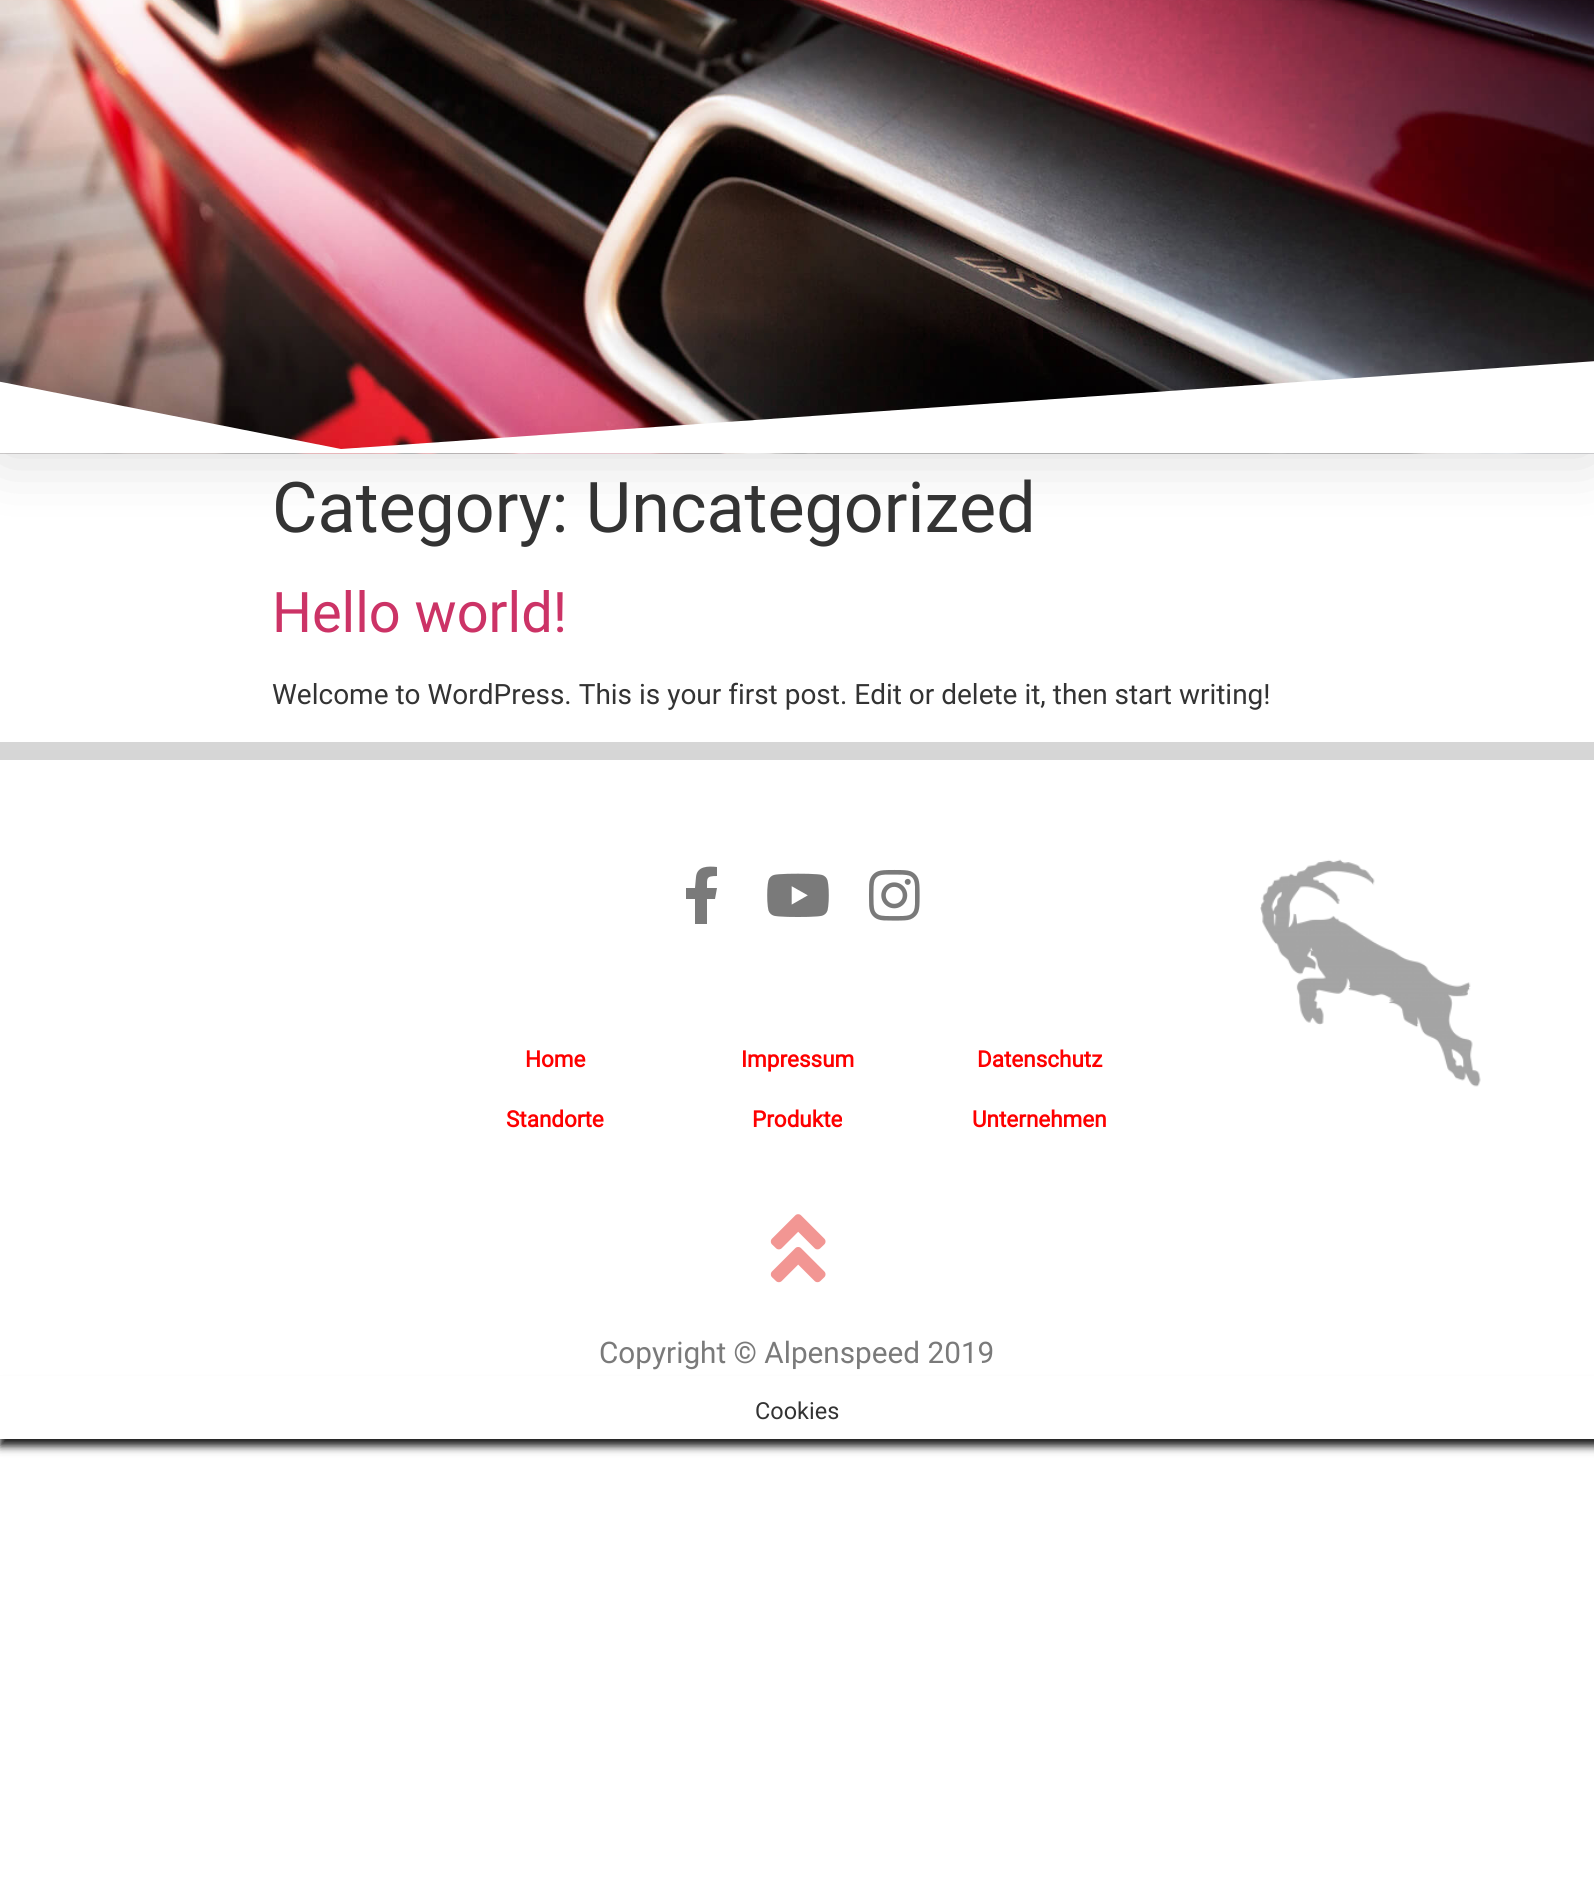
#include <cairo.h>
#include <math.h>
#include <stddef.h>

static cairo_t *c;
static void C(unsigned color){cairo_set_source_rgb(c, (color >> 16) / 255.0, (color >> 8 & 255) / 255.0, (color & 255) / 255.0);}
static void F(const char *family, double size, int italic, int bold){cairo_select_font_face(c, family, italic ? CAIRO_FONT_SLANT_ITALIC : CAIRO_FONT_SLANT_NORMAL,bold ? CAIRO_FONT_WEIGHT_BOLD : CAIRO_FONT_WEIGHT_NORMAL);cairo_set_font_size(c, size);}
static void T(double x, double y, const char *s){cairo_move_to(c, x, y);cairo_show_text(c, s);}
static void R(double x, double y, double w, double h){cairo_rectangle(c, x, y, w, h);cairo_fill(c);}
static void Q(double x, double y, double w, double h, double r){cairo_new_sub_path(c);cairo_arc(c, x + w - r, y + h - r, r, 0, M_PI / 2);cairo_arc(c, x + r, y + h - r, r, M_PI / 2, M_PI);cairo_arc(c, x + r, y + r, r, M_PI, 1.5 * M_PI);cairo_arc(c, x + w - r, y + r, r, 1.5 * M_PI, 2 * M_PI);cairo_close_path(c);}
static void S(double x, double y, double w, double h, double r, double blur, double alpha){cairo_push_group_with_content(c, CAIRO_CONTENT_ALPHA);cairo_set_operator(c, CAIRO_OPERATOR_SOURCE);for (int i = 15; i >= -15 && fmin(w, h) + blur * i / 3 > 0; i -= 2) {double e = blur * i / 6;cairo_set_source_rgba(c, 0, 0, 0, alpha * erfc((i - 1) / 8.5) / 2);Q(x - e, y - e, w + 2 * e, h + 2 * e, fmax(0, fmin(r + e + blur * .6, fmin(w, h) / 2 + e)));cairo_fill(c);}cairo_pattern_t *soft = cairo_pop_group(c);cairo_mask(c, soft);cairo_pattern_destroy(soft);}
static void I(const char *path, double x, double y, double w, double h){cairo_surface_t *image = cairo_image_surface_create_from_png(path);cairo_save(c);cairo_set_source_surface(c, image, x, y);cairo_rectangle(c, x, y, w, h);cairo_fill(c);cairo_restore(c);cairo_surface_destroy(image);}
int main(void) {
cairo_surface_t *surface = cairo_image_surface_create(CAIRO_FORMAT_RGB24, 1594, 1882);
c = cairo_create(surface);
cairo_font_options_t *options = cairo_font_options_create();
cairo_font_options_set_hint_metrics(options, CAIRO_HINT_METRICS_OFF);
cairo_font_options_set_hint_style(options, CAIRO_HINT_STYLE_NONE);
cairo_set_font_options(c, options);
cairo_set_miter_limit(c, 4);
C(0xffffff);
cairo_paint(c);
C(0x000000);
S(0,0,1594,453,0,35,.16);
I("1.png",0,0,1594,454);
cairo_save(c);
cairo_rectangle(c,0,350,1594,103);
cairo_clip(c);
C(0xffffff);
cairo_new_path(c);
cairo_move_to(c,341,449);
cairo_line_to(c,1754,350);
cairo_line_to(c,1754,455);
cairo_line_to(c,-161,455);
cairo_line_to(c,-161,350);
cairo_close_path(c);
cairo_fill(c);
cairo_restore(c);
F("Roboto",70,0,0);
C(0x333333);
T(272,532,"Category: Uncategorized");
F("Roboto",56,0,0);
C(0xcc3366);
T(272,632,"Hello world!");
F("Roboto",28,0,0);
C(0x333333);
T(272,704,"Welcome to WordPress. This is your first post. Edit or delete it, then start writing!");
C(0xd6d6d6);
R(0,742,1594,18);
C(0x7a7a7a);
cairo_new_path(c);
cairo_move_to(c,715,899);
cairo_line_to(c,707,899);
cairo_line_to(c,707,924);
cairo_line_to(c,695,924);
cairo_line_to(c,695,899);
cairo_line_to(c,686,899);
cairo_line_to(c,686,888);
cairo_line_to(c,695,888);
cairo_line_to(c,696,877);
cairo_curve_to(c,697,866,708,866,717,867);
cairo_line_to(c,717,876);
cairo_curve_to(c,706,876,707,878,707,888);
cairo_line_to(c,717,888);
cairo_close_path(c);
cairo_fill(c);
I("2.png",767,873,62,44);
I("3.png",869,869,51,52);
F("Roboto",22.5,0,1);
C(0xfe0000);
T(525,1067,"Home");
T(741,1067,"Impressum");
T(977,1067,"Datenschutz");
T(506,1127,"Standorte");
T(752,1127,"Produkte");
T(972,1127,"Unternehmen");
I("4.png",1260,859,221,228);
cairo_save(c);
cairo_set_fill_rule(c,CAIRO_FILL_RULE_EVEN_ODD);
cairo_new_path(c);
cairo_move_to(c,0,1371);
cairo_line_to(c,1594,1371);
cairo_line_to(c,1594,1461);
cairo_line_to(c,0,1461);
cairo_close_path(c);
cairo_move_to(c,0,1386);
cairo_line_to(c,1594,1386);
cairo_line_to(c,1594,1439);
cairo_line_to(c,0,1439);
cairo_close_path(c);
cairo_clip(c);
C(0x161616);
S(0,1386,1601,60,0,4.5,1);
cairo_restore(c);
C(0xffffff);
R(0,1376,1594,10);
I("5.png",770,1214,56,69);
F("Roboto",29.75,0,0);
C(0x7a7a7a);
T(599,1363,"Copyright © Alpenspeed 2019");
F("Roboto",23.5,0,0);
C(0x333333);
T(755,1419,"Cookies");
cairo_surface_write_to_png(surface, "o.png");
cairo_font_options_destroy(options);
cairo_destroy(c);
cairo_surface_destroy(surface);
return 0;
}
